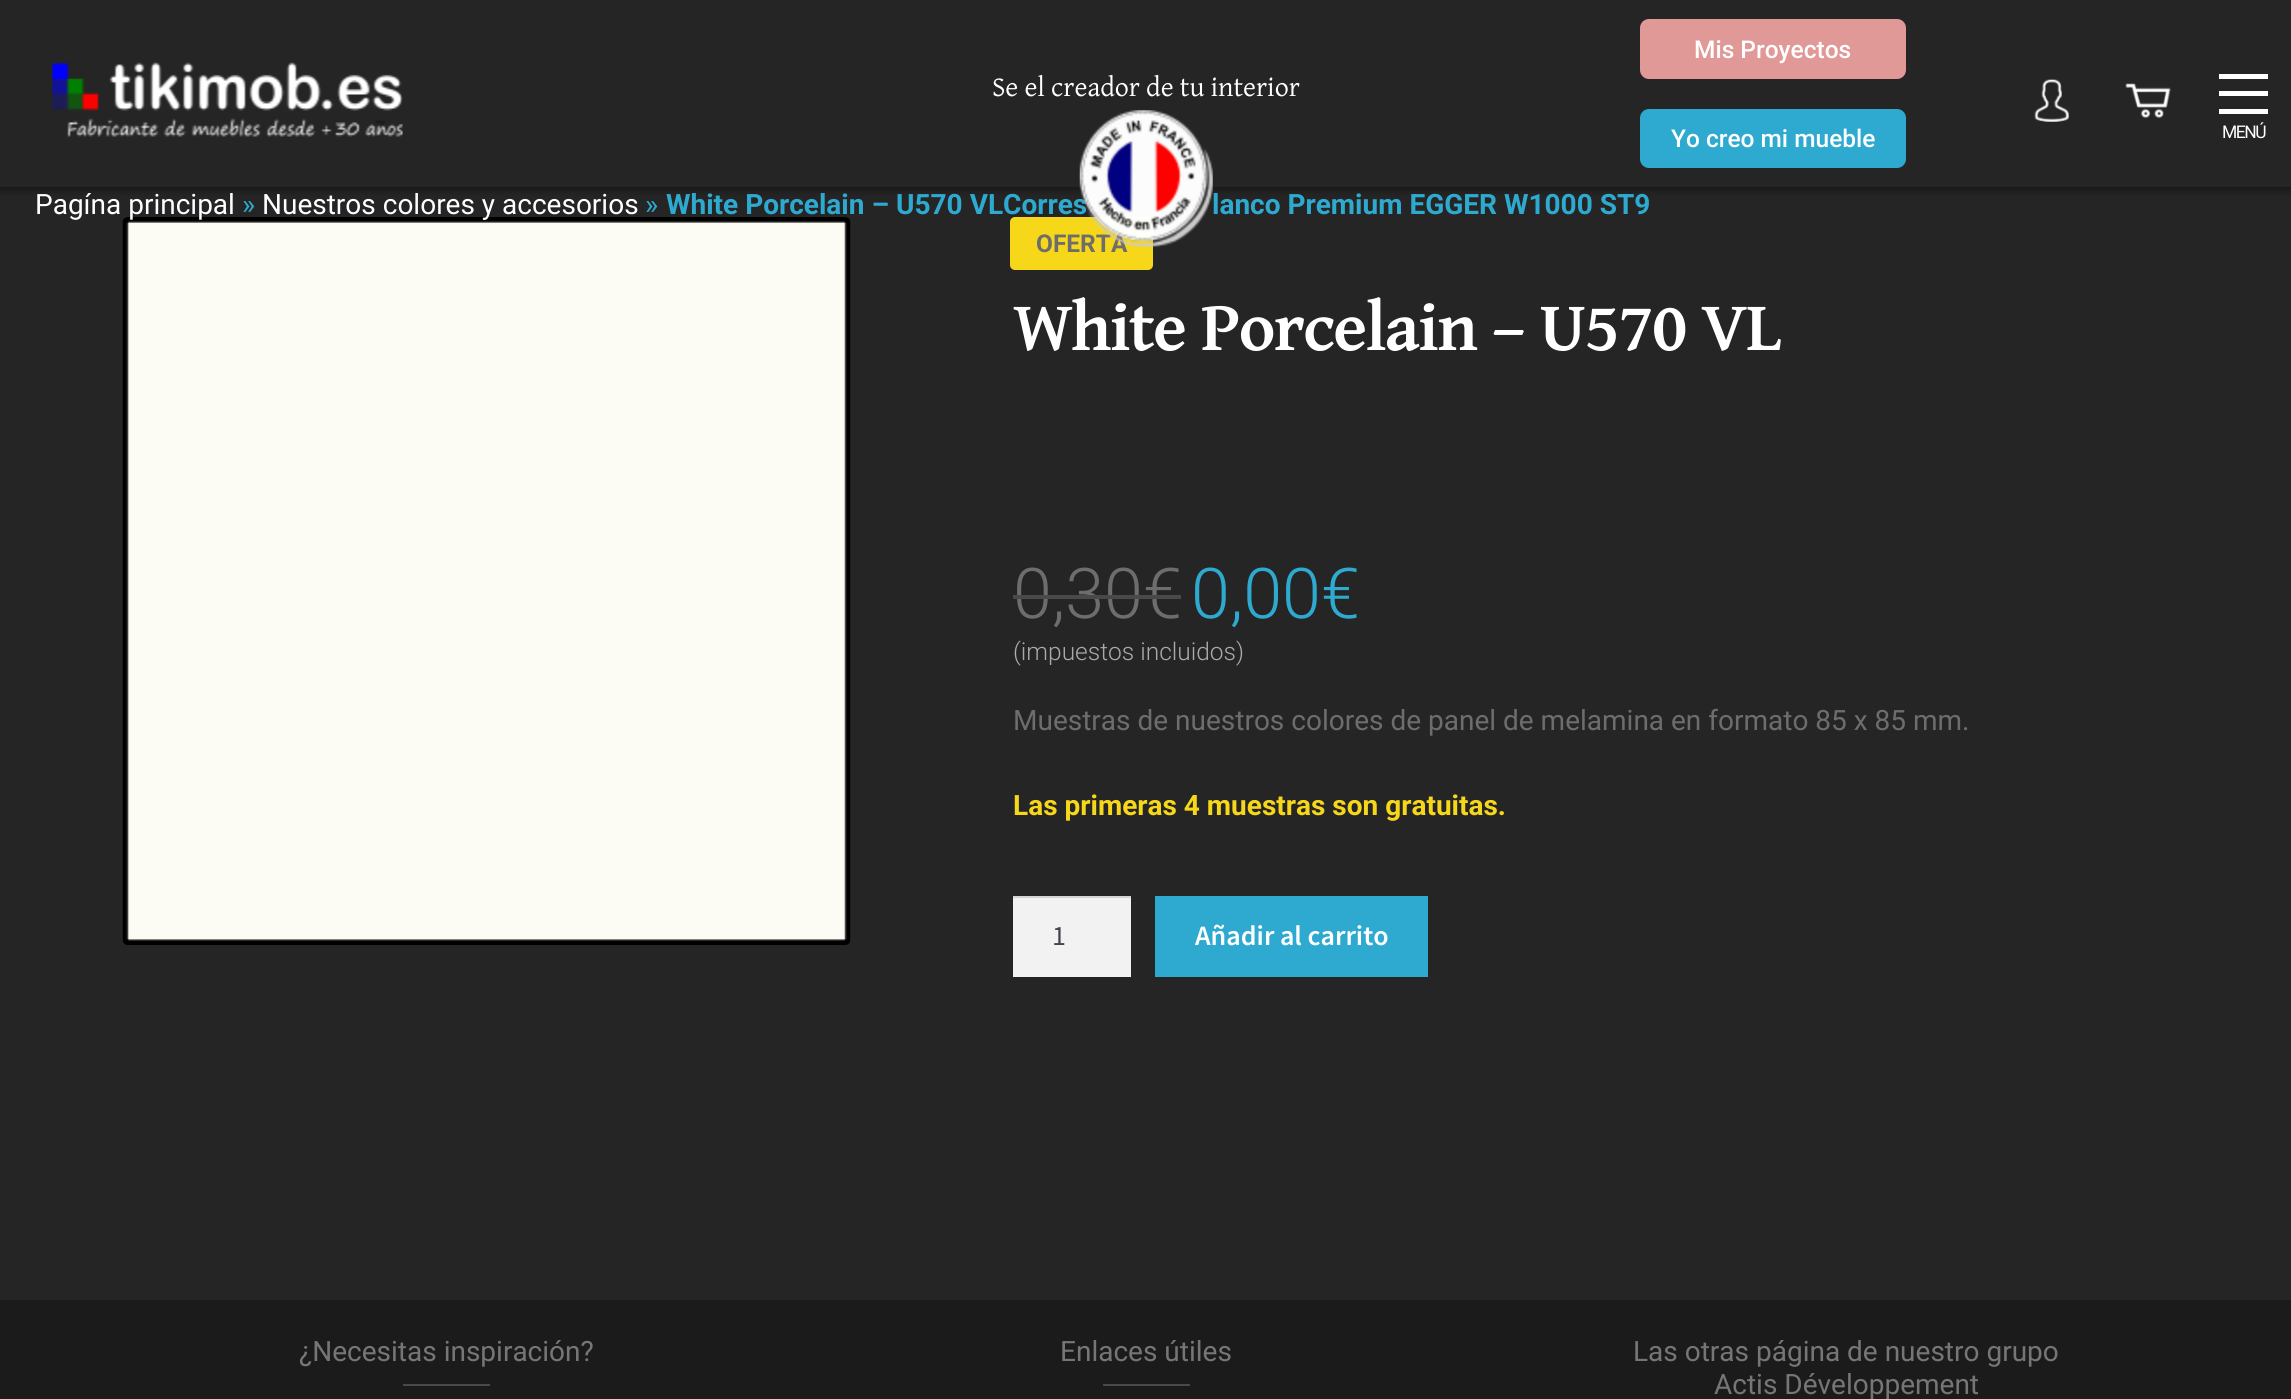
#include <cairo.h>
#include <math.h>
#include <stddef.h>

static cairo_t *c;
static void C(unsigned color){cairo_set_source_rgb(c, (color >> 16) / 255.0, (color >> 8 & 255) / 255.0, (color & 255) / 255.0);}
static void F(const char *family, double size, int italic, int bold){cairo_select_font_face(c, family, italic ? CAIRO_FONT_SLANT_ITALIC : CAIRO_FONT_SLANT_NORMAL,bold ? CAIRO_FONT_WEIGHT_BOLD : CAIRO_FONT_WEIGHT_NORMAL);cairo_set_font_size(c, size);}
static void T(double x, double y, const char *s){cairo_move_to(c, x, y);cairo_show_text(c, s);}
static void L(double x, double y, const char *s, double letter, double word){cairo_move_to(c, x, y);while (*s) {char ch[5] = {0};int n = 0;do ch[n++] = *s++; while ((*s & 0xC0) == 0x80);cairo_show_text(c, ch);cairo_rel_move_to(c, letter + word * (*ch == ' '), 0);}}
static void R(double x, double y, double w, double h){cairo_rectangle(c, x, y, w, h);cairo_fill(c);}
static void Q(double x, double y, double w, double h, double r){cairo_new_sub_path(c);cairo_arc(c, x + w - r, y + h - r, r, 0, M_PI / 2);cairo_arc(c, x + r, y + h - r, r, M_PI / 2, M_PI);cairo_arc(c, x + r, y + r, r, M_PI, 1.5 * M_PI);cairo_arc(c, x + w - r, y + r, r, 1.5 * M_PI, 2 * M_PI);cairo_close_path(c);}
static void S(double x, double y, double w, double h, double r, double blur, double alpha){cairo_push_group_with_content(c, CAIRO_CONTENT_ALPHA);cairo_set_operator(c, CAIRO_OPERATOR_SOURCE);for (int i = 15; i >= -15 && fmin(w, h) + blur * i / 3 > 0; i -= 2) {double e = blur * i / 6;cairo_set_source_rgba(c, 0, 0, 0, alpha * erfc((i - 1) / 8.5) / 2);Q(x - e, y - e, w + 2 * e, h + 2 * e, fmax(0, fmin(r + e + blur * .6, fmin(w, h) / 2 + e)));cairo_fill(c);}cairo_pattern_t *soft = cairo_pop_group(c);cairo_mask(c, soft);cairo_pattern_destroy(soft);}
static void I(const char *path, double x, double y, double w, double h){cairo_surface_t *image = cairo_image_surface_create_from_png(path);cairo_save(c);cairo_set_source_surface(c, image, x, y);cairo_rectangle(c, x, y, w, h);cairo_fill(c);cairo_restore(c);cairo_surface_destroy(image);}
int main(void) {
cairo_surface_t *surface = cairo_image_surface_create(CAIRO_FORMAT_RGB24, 2291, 1399);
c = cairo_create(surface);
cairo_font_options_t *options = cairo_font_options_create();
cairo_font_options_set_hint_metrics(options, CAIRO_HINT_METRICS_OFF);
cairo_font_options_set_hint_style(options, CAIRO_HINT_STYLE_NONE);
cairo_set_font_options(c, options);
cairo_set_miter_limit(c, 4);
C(0x252525);
cairo_paint(c);
cairo_save(c);
cairo_rectangle(c,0,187,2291,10);
cairo_clip(c);
C(0x000000);
S(-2,-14,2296,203,0,4.5,.5);
cairo_restore(c);
I("1.png",52,62,351,75);
F("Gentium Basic",28,0,0);
C(0xffffff);
T(992,96,"Se el creador de tu interior");
F("Roboto",28,0,1);
C(0x2eaad0);
T(666,214,"White Porcelain – U570 VLCorres");
C(0xf7d719);
Q(1010,217,143,53,5);
cairo_fill(c);
F("Roboto",24.5,0,1);
C(0x6d6d6d);
T(1036,252,"OFERTA");
I("2.png",1079,110,134,138);
C(0xe19998);
Q(1641,20,264,58,8);
cairo_fill_preserve(c);
cairo_stroke(c);
F("Roboto Medium",24.5,0,0);
C(0xffffff);
T(1694,58,"Mis Proyectos");
I("3.png",2034,79,35,43);
I("4.png",2125,83,46,35);
C(0x2eaad0);
Q(1641,110,264,57,8);
cairo_fill_preserve(c);
cairo_stroke(c);
C(0xffffff);
T(1671,147,"Yo creo mi mueble");
R(2219,74,49,5);
R(2219,91,49,5);
R(2219,109,49,5);
F("Roboto",17.5,0,0);
L(2222,138,"MENÚ",-1.5,0);
I("5.png",122,217,729,728);
F("Roboto",28,0,0);
T(35,214,"Pagína principal");
C(0x2eaad0);
T(242,214,"»");
C(0xffffff);
T(262,214,"Nuestros colores y accesorios");
C(0x2eaad0);
T(645,214,"»");
F("Roboto",28,0,1);
T(1212,214,"lanco Premium EGGER W1000 ST9");
F("Gentium Basic",70,0,1);
C(0xffffff);
L(1013,350,"White Porcelain – U570 VL",-1.75,0);
F("Roboto Light",70,0,0);
C(0x6d6d6d);
T(1013,618,"0,30€");
C(0x494949);
R(1013,595,168,4);
C(0x2eaad0);
T(1191,618,"0,00€");
F("Roboto Light",24.5,0,0);
C(0xaaaaaa);
T(1013,660,"(impuestos incluidos)");
F("Roboto",28,0,0);
C(0x6d6d6d);
T(1013,730,"Muestras de nuestros colores de panel de melamina en formato 85 x 85 mm.");
F("Roboto",28,0,1);
C(0xf7d719);
T(1013,815,"Las primeras 4 muestras son gratuitas.");
C(0xf2f2f2);
R(1013,898,118,79);
C(0xd4d4d4);
R(1013,896,118,2);
F("Source Sans Pro",28,0,0);
C(0x43454b);
T(1052,945,"1");
C(0x2eaad0);
R(1155,896,273,81);
F("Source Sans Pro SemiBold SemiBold",28,0,0);
C(0xffffff);
T(1195,945,"Añadir al carrito");
C(0x1b1b1b);
R(0,1300,2291,99);
F("Roboto",28,0,0);
C(0x767676);
T(299,1361,"¿Necesitas inspiración?");
C(0x494949);
R(403,1384,87,2);
C(0x767676);
T(1060,1361,"Enlaces útiles");
C(0x494949);
R(1103,1384,87,2);
C(0x767676);
T(1633,1361,"Las otras página de nuestro grupo");
T(1714,1394,"Actis Développement");
cairo_surface_write_to_png(surface, "o.png");
cairo_font_options_destroy(options);
cairo_destroy(c);
cairo_surface_destroy(surface);
return 0;
}
